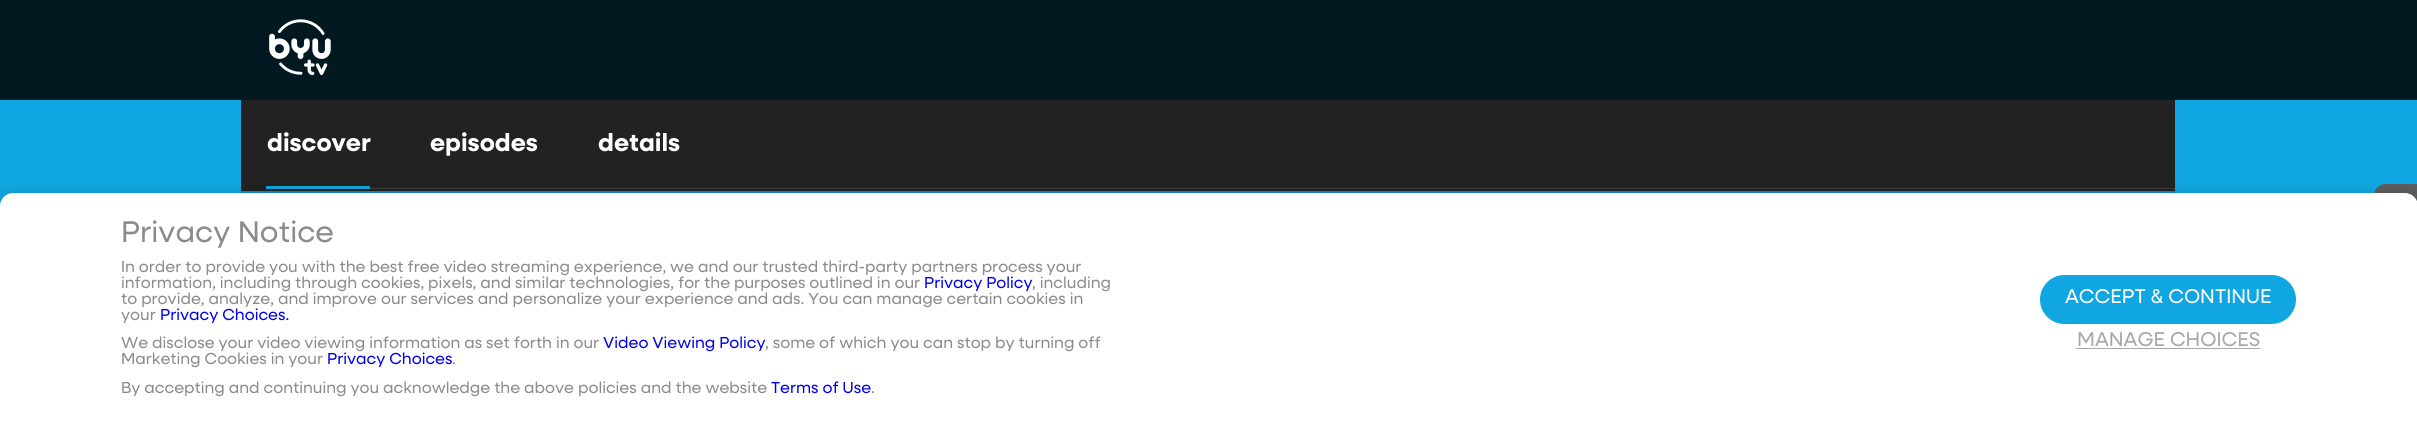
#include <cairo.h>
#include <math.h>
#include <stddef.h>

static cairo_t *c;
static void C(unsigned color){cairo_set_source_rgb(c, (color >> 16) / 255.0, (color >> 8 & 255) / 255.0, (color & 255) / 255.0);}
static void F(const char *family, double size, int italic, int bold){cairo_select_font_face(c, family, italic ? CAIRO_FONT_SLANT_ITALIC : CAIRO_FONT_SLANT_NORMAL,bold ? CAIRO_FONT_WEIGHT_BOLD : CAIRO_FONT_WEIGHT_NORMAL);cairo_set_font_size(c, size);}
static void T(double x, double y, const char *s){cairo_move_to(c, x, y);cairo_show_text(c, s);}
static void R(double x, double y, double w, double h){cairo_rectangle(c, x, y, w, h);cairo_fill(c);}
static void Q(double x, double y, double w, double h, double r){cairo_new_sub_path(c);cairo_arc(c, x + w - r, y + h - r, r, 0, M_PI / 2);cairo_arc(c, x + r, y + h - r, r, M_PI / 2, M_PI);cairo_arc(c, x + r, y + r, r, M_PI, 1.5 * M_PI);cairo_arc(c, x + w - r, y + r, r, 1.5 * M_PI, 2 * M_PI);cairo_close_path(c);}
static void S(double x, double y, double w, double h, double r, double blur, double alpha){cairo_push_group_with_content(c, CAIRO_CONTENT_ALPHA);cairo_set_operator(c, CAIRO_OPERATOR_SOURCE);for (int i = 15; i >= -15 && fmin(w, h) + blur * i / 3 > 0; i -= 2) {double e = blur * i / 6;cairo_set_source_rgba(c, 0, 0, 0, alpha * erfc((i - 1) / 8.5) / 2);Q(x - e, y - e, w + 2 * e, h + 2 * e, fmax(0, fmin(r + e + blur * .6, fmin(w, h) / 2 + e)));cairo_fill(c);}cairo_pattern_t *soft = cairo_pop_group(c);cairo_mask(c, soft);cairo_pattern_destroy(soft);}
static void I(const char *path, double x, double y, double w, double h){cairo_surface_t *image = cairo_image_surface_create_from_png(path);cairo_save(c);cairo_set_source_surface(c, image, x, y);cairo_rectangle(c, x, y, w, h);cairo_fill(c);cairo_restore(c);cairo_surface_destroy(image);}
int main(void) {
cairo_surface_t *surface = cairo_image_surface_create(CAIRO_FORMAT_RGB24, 2417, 435);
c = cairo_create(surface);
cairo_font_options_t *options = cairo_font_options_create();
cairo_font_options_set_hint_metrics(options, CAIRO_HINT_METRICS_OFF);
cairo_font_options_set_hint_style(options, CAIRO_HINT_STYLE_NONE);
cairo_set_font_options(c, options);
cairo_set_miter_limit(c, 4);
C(0x11a7e2);
cairo_paint(c);
cairo_set_source_rgba(c,0,0,0,0.85);
R(0,0,2417,100);
I("1.png",269,19,62,57);
cairo_set_source_rgba(c,0,0,0,0.15);
cairo_new_path(c);
cairo_move_to(c,241,106);
cairo_line_to(c,241,198);
cairo_line_to(c,2175,198);
cairo_line_to(c,2175,191);
cairo_line_to(c,241,191);
cairo_close_path(c);
cairo_fill(c);
C(0x222222);
R(241,100,1934,91);
C(0x3e3e3e);
R(370,188,1805,1);
C(0x0fa6e2);
R(266,186,104,3);
F("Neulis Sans",25,0,1);
C(0xffffff);
T(267,151,"discover");
T(430,151,"episodes");
T(598,151,"details");
C(0x5d5d5d);
cairo_new_path(c);
cairo_move_to(c,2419,370);
cairo_line_to(c,2386,370);
cairo_curve_to(c,2379,370,2374,364,2374,357);
cairo_line_to(c,2374,196);
cairo_curve_to(c,2374,189,2379,184,2386,184);
cairo_line_to(c,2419,184);
cairo_close_path(c);
cairo_fill(c);
C(0x000000);
S(0,190,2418,243,13,6,.1);
C(0xffffff);
cairo_new_path(c);
cairo_move_to(c,13,193);
cairo_line_to(c,2405,193);
cairo_curve_to(c,2412,193,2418,199,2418,206);
cairo_line_to(c,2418,435);
cairo_line_to(c,0,435);
cairo_line_to(c,0,206);
cairo_curve_to(c,0,199,6,193,13,193);
cairo_close_path(c);
cairo_fill(c);
F("Neulis Sans",30,0,0);
C(0x898b8d);
T(121,242,"Privacy Notice");
F("Neulis Sans",16,0,0);
T(121,272,"In order to provide you with the best free video streaming experience, we and our trusted third-party partners process your");
T(121,288,"information, including through cookies, pixels, and similar technologies, for the purposes outlined in our");
C(0x0000ee);
T(924,288,"Privacy Policy");
C(0x898b8d);
T(1032,288,", including");
T(121,304,"to provide, analyze, and improve our services and personalize your experience and ads. You can manage certain cookies in");
T(121,320,"your");
C(0x0000ee);
T(160,320,"Privacy Choices.");
C(0x898b8d);
T(121,348,"We disclose your video viewing information as set forth in our");
C(0x0000ee);
T(603,348,"Video Viewing Policy");
C(0x898b8d);
T(765,348,", some of which you can stop by turning off");
T(121,364,"Marketing Cookies in your");
C(0x0000ee);
T(327,364,"Privacy Choices");
C(0x898b8d);
T(452,364,".");
T(121,393,"By accepting and continuing you acknowledge the above policies and the website");
C(0x0000ee);
T(771,393,"Terms of Use");
C(0x898b8d);
T(871,393,".");
C(0x0fa6e2);
Q(2040,275,256,49,24.5);
cairo_fill(c);
F("Neulis Sans",20,0,0);
C(0xffffff);
T(2065,303,"ACCEPT & CONTINUE");
C(0xa5a8ac);
T(2077,346,"MANAGE CHOICES");
R(2076,348,184,1);
cairo_surface_write_to_png(surface, "o.png");
cairo_font_options_destroy(options);
cairo_destroy(c);
cairo_surface_destroy(surface);
return 0;
}
